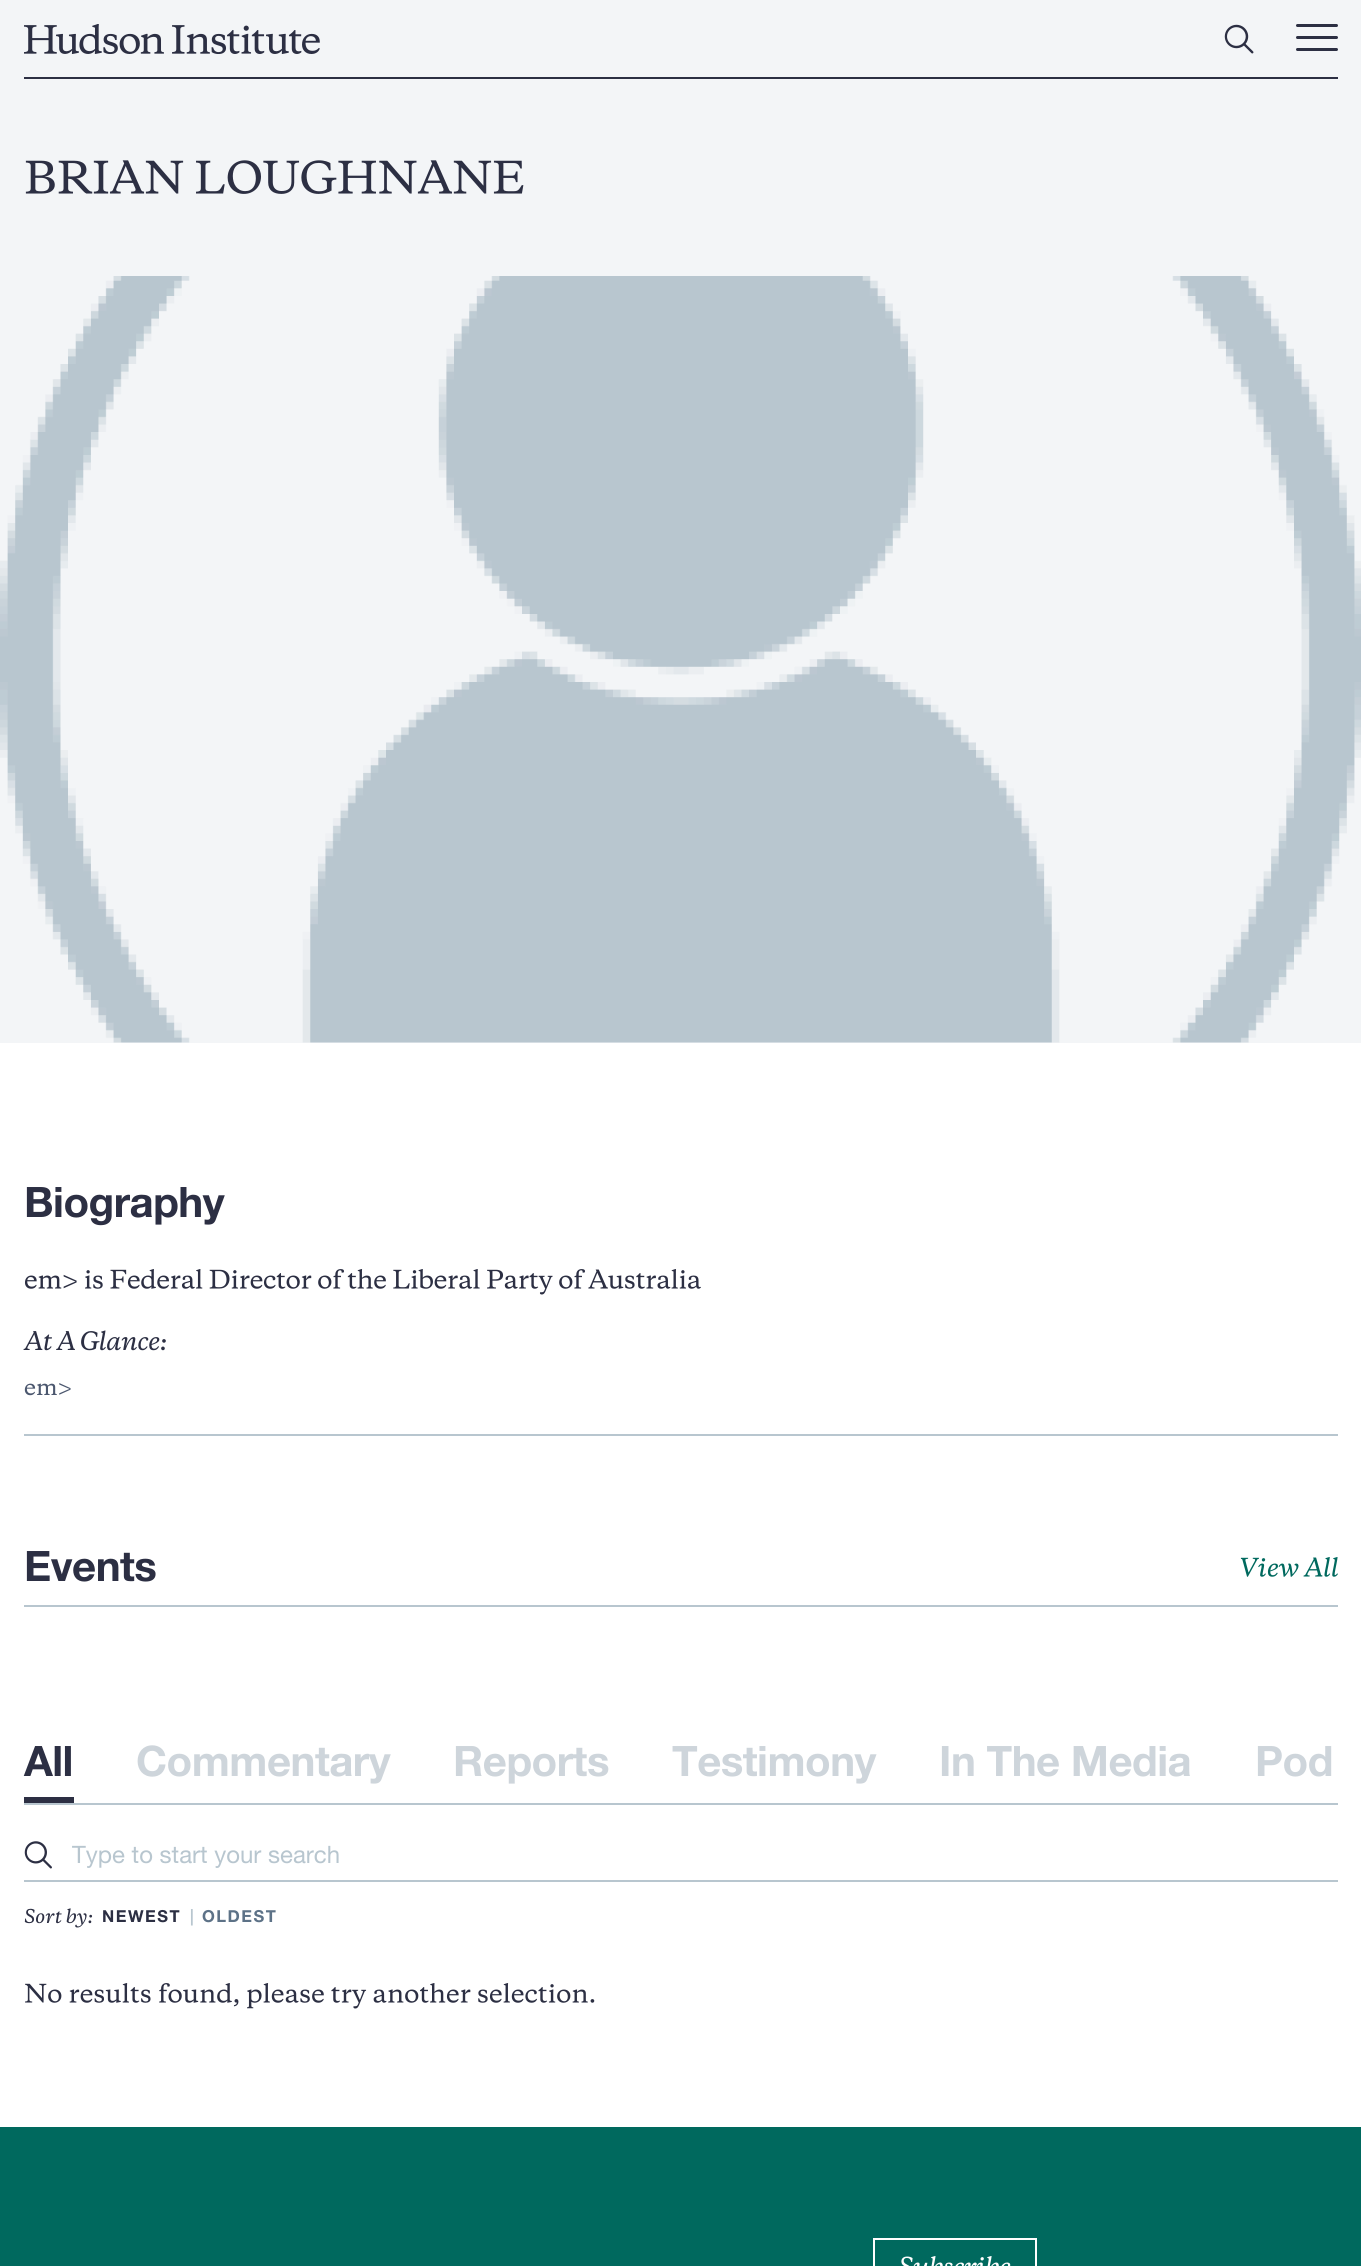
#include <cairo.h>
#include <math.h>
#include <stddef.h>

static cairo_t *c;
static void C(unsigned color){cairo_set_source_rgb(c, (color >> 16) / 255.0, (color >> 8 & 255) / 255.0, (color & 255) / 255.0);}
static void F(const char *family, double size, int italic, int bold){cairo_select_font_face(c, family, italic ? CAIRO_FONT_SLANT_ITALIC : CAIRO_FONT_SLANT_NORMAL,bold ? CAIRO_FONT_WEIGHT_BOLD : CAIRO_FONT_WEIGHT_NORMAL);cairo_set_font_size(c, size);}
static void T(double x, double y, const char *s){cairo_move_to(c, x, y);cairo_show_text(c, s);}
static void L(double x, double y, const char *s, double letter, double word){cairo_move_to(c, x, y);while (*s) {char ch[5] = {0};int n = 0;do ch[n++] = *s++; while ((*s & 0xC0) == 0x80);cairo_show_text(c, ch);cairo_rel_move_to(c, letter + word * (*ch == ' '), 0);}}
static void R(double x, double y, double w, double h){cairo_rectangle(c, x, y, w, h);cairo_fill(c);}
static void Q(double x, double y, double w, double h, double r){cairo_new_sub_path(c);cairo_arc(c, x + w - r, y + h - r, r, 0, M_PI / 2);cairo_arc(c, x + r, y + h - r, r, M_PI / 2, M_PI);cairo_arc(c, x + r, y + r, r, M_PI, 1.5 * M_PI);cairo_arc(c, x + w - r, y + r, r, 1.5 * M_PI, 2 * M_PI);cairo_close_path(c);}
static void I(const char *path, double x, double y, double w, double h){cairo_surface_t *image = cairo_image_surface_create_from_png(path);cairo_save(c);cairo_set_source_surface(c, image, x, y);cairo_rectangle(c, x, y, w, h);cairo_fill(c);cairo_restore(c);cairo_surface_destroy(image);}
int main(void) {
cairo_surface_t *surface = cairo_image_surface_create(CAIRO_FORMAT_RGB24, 1361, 2266);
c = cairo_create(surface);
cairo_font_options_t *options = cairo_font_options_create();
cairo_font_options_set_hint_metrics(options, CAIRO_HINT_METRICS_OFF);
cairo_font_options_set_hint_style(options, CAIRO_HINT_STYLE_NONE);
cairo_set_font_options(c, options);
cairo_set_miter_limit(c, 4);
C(0xffffff);
cairo_paint(c);
C(0xf3f5f7);
R(0,0,1361,1043);
I("1.png",24,24,296,30);
I("2.png",1224,24,30,30);
C(0x2c2f43);
Q(1296,24,42,3,1.5);
cairo_fill(c);
Q(1296,36,42,3,1.5);
cairo_fill(c);
Q(1296,48,42,3,1.5);
cairo_fill(c);
R(24,77,1314,2);
I("3.png",25,160,499,34);
I("4.png",0,276,1361,767);
F("Helvetica Neue",42,0,1);
L(24,1217,"Biography",-.5,0);
I("5.png",25,1274,52,15);
I("6.png",85,1269,616,26);
C(0xb8c6cf);
R(24,1434,1314,2);
I("7.png",23,1330,143,21);
I("8.png",24,1383,47,13);
R(24,1605,1314,2);
C(0x2c2f43);
L(24,1581,"Events",-.5,0);
I("9.png",1240,1557,98,20);
C(0xb8c6cf);
R(24,1803,1314,2);
C(0x2c2f43);
R(24,1797,50,6);
L(24,1776,"All",-.5,0);
C(0xced5db);
L(136,1776,"Commentary",-.5,0);
L(453,1776,"Reports",-.5,0);
L(672,1776,"Testimony",-.5,0);
L(939,1776,"In The Media",-.5,0);
L(1255,1776,"Pod",-.5,0);
I("10.png",24,1841,28,28);
C(0xb8c6cf);
R(24,1880,1314,2);
F("Helvetica Neue",24,0,0);
T(72,1863,"Type to start your search");
I("11.png",24,1908,69,20);
F("Helvetica Neue",16.5,0,1);
C(0x2c2f43);
L(102,1922,"NEWEST",1.5,0);
C(0xb8c6cf);
L(190,1922,"|",1.5,0);
C(0x5d7287);
L(202,1922,"OLDEST",1.5,0);
I("12.png",25,1983,570,26);
C(0x00695e);
R(0,2127,1361,139);
cairo_rectangle(c,874,2239,162,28);
C(0xffffff);
cairo_stroke(c);
I("13.png",901,2256,110,10);
cairo_surface_write_to_png(surface, "o.png");
cairo_font_options_destroy(options);
cairo_destroy(c);
cairo_surface_destroy(surface);
return 0;
}
